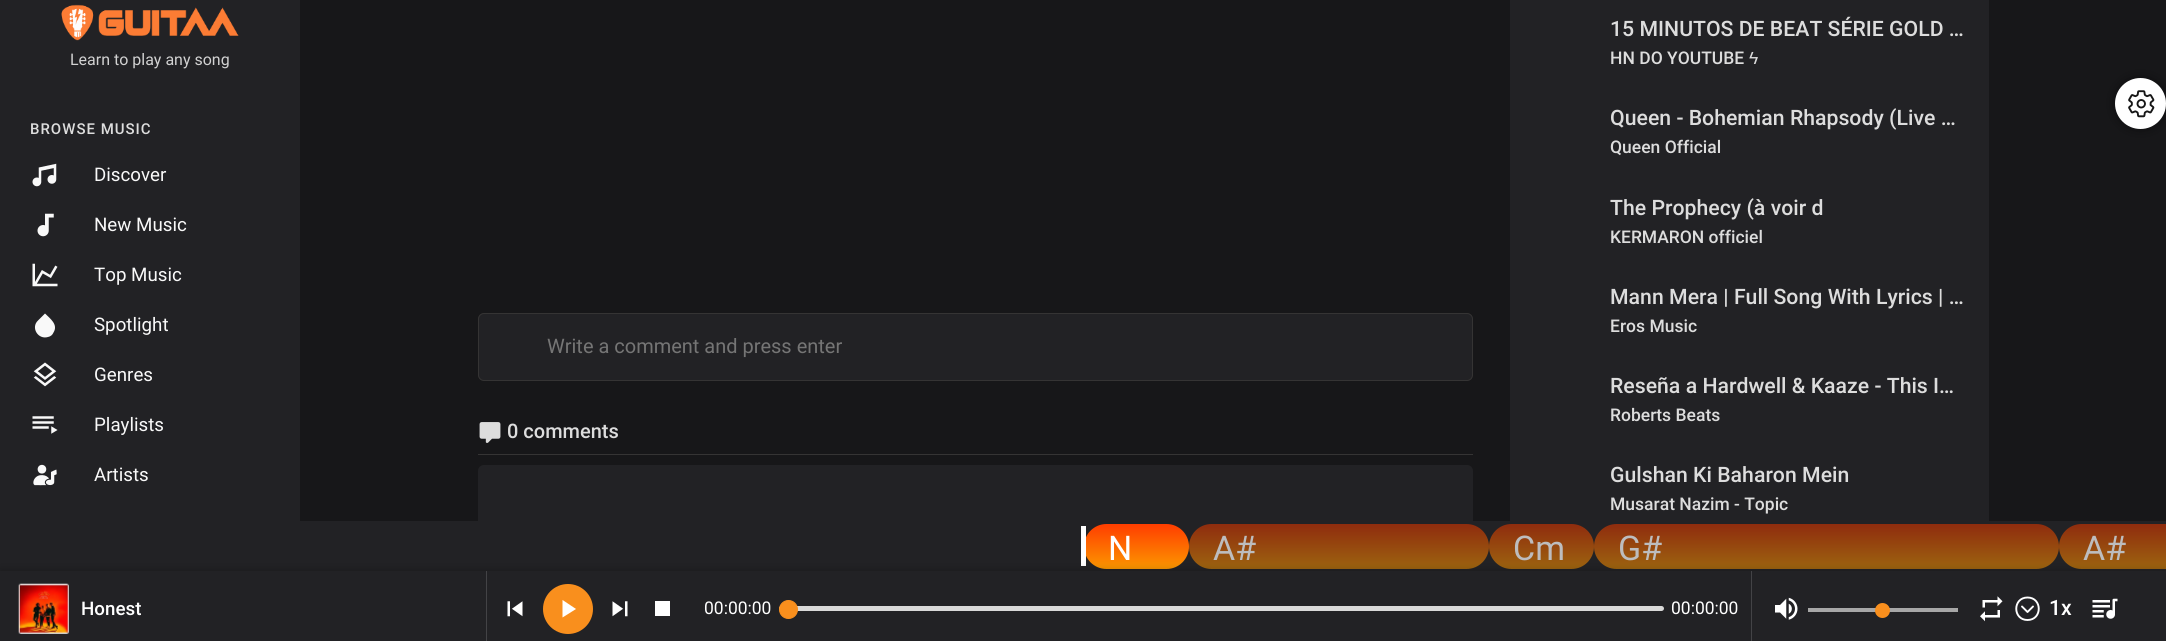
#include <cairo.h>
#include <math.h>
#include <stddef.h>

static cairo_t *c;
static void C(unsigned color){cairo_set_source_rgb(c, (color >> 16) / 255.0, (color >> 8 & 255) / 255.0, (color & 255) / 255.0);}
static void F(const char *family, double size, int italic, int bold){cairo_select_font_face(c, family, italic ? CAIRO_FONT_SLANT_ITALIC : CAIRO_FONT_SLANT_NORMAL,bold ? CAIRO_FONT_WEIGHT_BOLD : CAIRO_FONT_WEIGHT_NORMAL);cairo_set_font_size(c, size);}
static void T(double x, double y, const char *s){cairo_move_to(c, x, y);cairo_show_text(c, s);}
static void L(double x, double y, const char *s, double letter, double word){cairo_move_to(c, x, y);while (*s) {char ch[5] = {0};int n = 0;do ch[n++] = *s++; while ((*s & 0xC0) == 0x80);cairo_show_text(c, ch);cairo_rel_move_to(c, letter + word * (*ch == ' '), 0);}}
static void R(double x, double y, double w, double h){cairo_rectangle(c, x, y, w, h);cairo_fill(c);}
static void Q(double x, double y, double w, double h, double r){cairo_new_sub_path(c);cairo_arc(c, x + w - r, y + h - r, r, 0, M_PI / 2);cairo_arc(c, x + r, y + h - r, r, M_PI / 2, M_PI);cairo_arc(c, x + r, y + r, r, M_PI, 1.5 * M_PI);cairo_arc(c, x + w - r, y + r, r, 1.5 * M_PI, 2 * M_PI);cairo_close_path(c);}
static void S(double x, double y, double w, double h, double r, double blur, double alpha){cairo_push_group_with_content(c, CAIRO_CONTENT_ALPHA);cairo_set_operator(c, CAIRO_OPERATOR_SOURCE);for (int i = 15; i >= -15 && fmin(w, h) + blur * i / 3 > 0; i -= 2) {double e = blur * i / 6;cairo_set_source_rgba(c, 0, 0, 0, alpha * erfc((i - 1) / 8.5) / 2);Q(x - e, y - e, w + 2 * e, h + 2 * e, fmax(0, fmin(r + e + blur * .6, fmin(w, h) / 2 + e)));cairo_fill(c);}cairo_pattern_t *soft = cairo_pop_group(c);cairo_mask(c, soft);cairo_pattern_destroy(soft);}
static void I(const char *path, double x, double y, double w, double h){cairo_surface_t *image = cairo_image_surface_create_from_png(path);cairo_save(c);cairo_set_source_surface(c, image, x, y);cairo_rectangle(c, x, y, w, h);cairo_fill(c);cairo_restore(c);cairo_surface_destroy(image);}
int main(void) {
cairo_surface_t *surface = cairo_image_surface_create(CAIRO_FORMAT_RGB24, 2166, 641);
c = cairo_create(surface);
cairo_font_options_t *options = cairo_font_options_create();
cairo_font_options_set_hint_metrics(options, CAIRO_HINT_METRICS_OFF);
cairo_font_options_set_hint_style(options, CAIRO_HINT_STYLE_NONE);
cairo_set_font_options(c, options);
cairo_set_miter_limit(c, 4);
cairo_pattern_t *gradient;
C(0x171719);
cairo_paint(c);
C(0x222225);
R(0,0,300,521);
I("1.png",61,4,178,37);
F("Roboto",16,0,0);
C(0xd2d2d2);
T(70,65,"Learn to play any song");
F("Roboto Medium",15,0,0);
C(0xdddddd);
L(30,134,"BROWSE MUSIC",1,0);
I("2.png",32,163,25,24);
F("Roboto",18.75,0,0);
C(0xf9f9f9);
T(94,181,"Discover");
I("3.png",37,213,17,24);
T(94,231,"New Music");
I("4.png",32,263,26,24);
T(94,281,"Top Music");
cairo_new_path(c);
cairo_move_to(c,45,313.5);
cairo_curve_to(c,50,318.5,58.5,324.5,53.5,332.5);
cairo_curve_to(c,52.5,335,50.5,336.5,48,337);
cairo_curve_to(c,38,340,30.5,327.5,38,320.5);
cairo_close_path(c);
cairo_fill(c);
T(94,331,"Spotlight");
I("5.png",33,362,24,25);
T(94,381,"Genres");
I("6.png",32,416,26,18);
T(94,431,"Playlists");
I("7.png",33,464,24,22);
T(94,481,"Artists");
C(0x222225);
Q(478.5,313.5,994,67,5.5);
cairo_fill_preserve(c);
C(0x353434);
cairo_set_line_width(c,1);
cairo_stroke(c);
F("Roboto",20,0,0);
C(0x757575);
T(547,353,"Write a comment and press enter");
C(0x353434);
R(478,454,995,1);
I("8.png",479,422,22,21);
F("Roboto Medium",20,0,0);
C(0xdddddd);
T(507,438,"0 comments");
C(0x222225);
Q(478,465,995,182,6);
cairo_fill(c);
R(1510,0,479,521);
F("Roboto Medium",21.25,0,0);
C(0xdddddd);
T(1610,36,"15 MINUTOS DE BEAT SÉRIE GOLD …");
F("Roboto Medium",17.5,0,0);
T(1610,64,"HN DO YOUTUBE");
F("Liberation Sans",17.5,0,0);
T(1749,64,"ϟ");
F("Roboto Medium",21.25,0,0);
T(1610,125,"Queen - Bohemian Rhapsody (Live …");
F("Roboto Medium",17.5,0,0);
T(1610,153,"Queen Official");
F("Roboto Medium",21.25,0,0);
T(1610,215,"The Prophecy (à voir d");
F("Roboto Medium",17.5,0,0);
T(1610,243,"KERMARON officiel");
F("Roboto Medium",21.25,0,0);
T(1610,304,"Mann Mera | Full Song With Lyrics | …");
F("Roboto Medium",17.5,0,0);
T(1610,332,"Eros Music");
F("Roboto Medium",21.25,0,0);
T(1610,393,"Reseña a Hardwell & Kaaze - This I…");
F("Roboto Medium",17.5,0,0);
T(1610,421,"Roberts Beats");
F("Roboto Medium",21.25,0,0);
T(1610,482,"Gulshan Ki Baharon Mein");
F("Roboto Medium",17.5,0,0);
T(1610,510,"Musarat Nazim - Topic");
C(0x222225);
R(0,521,2166,120);
gradient = cairo_pattern_create_linear(1136,524,1136,569);
cairo_pattern_add_color_stop_rgba(gradient,0,1,0.239,0,1);
cairo_pattern_add_color_stop_rgba(gradient,1,0.988,0.592,0,1);
cairo_set_source(c,gradient);
cairo_pattern_destroy(gradient);
Q(1084,524,105,45,22.5);
cairo_fill(c);
C(0xffffff);
R(1081,526,5,40);
F("Roboto",34,0,0);
T(1108,560,"N");
gradient = cairo_pattern_create_linear(1339,524,1339,569);
cairo_pattern_add_color_stop_rgba(gradient,0,0.561,0.173,0.055,1);
cairo_pattern_add_color_stop_rgba(gradient,1,0.616,0.392,0.059,1);
cairo_set_source(c,gradient);
cairo_pattern_destroy(gradient);
Q(1189,524,300,45,22.5);
cairo_fill(c);
C(0xbdbdbe);
T(1213,560,"A#");
gradient = cairo_pattern_create_linear(1541,524,1541,569);
cairo_pattern_add_color_stop_rgba(gradient,0,0.561,0.173,0.055,1);
cairo_pattern_add_color_stop_rgba(gradient,1,0.616,0.392,0.059,1);
cairo_set_source(c,gradient);
cairo_pattern_destroy(gradient);
Q(1489,524,105,45,22.5);
cairo_fill(c);
C(0xbdbdbe);
T(1513,560,"Cm");
gradient = cairo_pattern_create_linear(1826,524,1826,569);
cairo_pattern_add_color_stop_rgba(gradient,0,0.561,0.173,0.055,1);
cairo_pattern_add_color_stop_rgba(gradient,1,0.616,0.392,0.059,1);
cairo_set_source(c,gradient);
cairo_pattern_destroy(gradient);
Q(1594,524,465,45,22.5);
cairo_fill(c);
C(0xbdbdbe);
T(1618,560,"G#");
gradient = cairo_pattern_create_linear(2164,524,2164,569);
cairo_pattern_add_color_stop_rgba(gradient,0,0.561,0.173,0.055,1);
cairo_pattern_add_color_stop_rgba(gradient,1,0.616,0.392,0.059,1);
cairo_set_source(c,gradient);
cairo_pattern_destroy(gradient);
Q(2059,524,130,45,22.5);
cairo_fill(c);
C(0xbdbdbe);
T(2083,560,"A#");
cairo_save(c);
cairo_set_fill_rule(c,CAIRO_FILL_RULE_EVEN_ODD);
cairo_new_path(c);
cairo_move_to(c,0,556);
cairo_line_to(c,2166,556);
cairo_line_to(c,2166,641);
cairo_line_to(c,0,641);
cairo_close_path(c);
cairo_move_to(c,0,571);
cairo_line_to(c,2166,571);
cairo_line_to(c,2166,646);
cairo_line_to(c,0,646);
cairo_close_path(c);
cairo_clip(c);
C(0x000000);
S(0,569,2166,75,0,4,.2);
cairo_restore(c);
C(0x000000);
S(2121,84,39,39,19.5,8,1);
C(0xffffff);
cairo_arc(c,2140.5,103.5,25.5,0,2 * M_PI);
cairo_fill(c);
I("9.png",2128,90,27,28);
C(0x434346);
R(486,571,1,70);
C(0x3e3e42);
Q(19,584,50,50,2.5);
cairo_fill(c);
I("10.png",18,583,51,51);
cairo_save(c);
cairo_rectangle(c,81,598,60,22);
cairo_clip(c);
F("Roboto Medium",18.75,0,0);
C(0xffffff);
T(81,615,"Honest");
cairo_restore(c);
I("11.png",507,601,16,16);
C(0xf98f1d);
cairo_arc(c,568,609,25,0,2 * M_PI);
cairo_fill(c);
C(0xffffff);
cairo_new_path(c);
cairo_move_to(c,562.5,600);
cairo_line_to(c,562.5,617.5);
cairo_line_to(c,576,609);
cairo_close_path(c);
cairo_fill(c);
I("12.png",612,601,16,16);
R(655,601,15,15);
F("Roboto",17.5,0,0);
T(704,614,"00:00:00");
C(0xd9d9d9);
Q(779,606,885,5,2.5);
cairo_fill(c);
C(0xf98f1d);
cairo_arc(c,788.5,609.5,9,0,2 * M_PI);
cairo_fill_preserve(c);
cairo_stroke(c);
C(0xffffff);
T(1671,614,"00:00:00");
C(0x434346);
R(1751,571,1,70);
I("13.png",1775,597,23,23);
C(0xa7a7a7);
R(1808,608,150,4);
C(0xf98f1d);
cairo_arc(c,1882.5,610.5,7.5,0,2 * M_PI);
cairo_fill(c);
I("14.png",1980,596,23,26);
cairo_new_path(c);
cairo_move_to(c,2027.5,597.5);
cairo_curve_to(c,2012.5,597.5,2012.5,620,2027.5,620);
cairo_curve_to(c,2042.5,620,2042.5,597.5,2027.5,597.5);
cairo_close_path(c);
C(0xffffff);
cairo_set_line_width(c,1.9);
cairo_stroke(c);
cairo_new_path(c);
cairo_move_to(c,2033,606.5);
cairo_line_to(c,2027.5,612);
cairo_line_to(c,2022,606.5);
cairo_set_line_cap(c,CAIRO_LINE_CAP_ROUND);
cairo_set_line_join(c,CAIRO_LINE_JOIN_ROUND);
cairo_stroke(c);
F("Roboto Medium",21.25,0,0);
T(2049,615,"1x");
I("15.png",2092,598,26,21);
cairo_surface_write_to_png(surface, "o.png");
cairo_font_options_destroy(options);
cairo_destroy(c);
cairo_surface_destroy(surface);
return 0;
}
